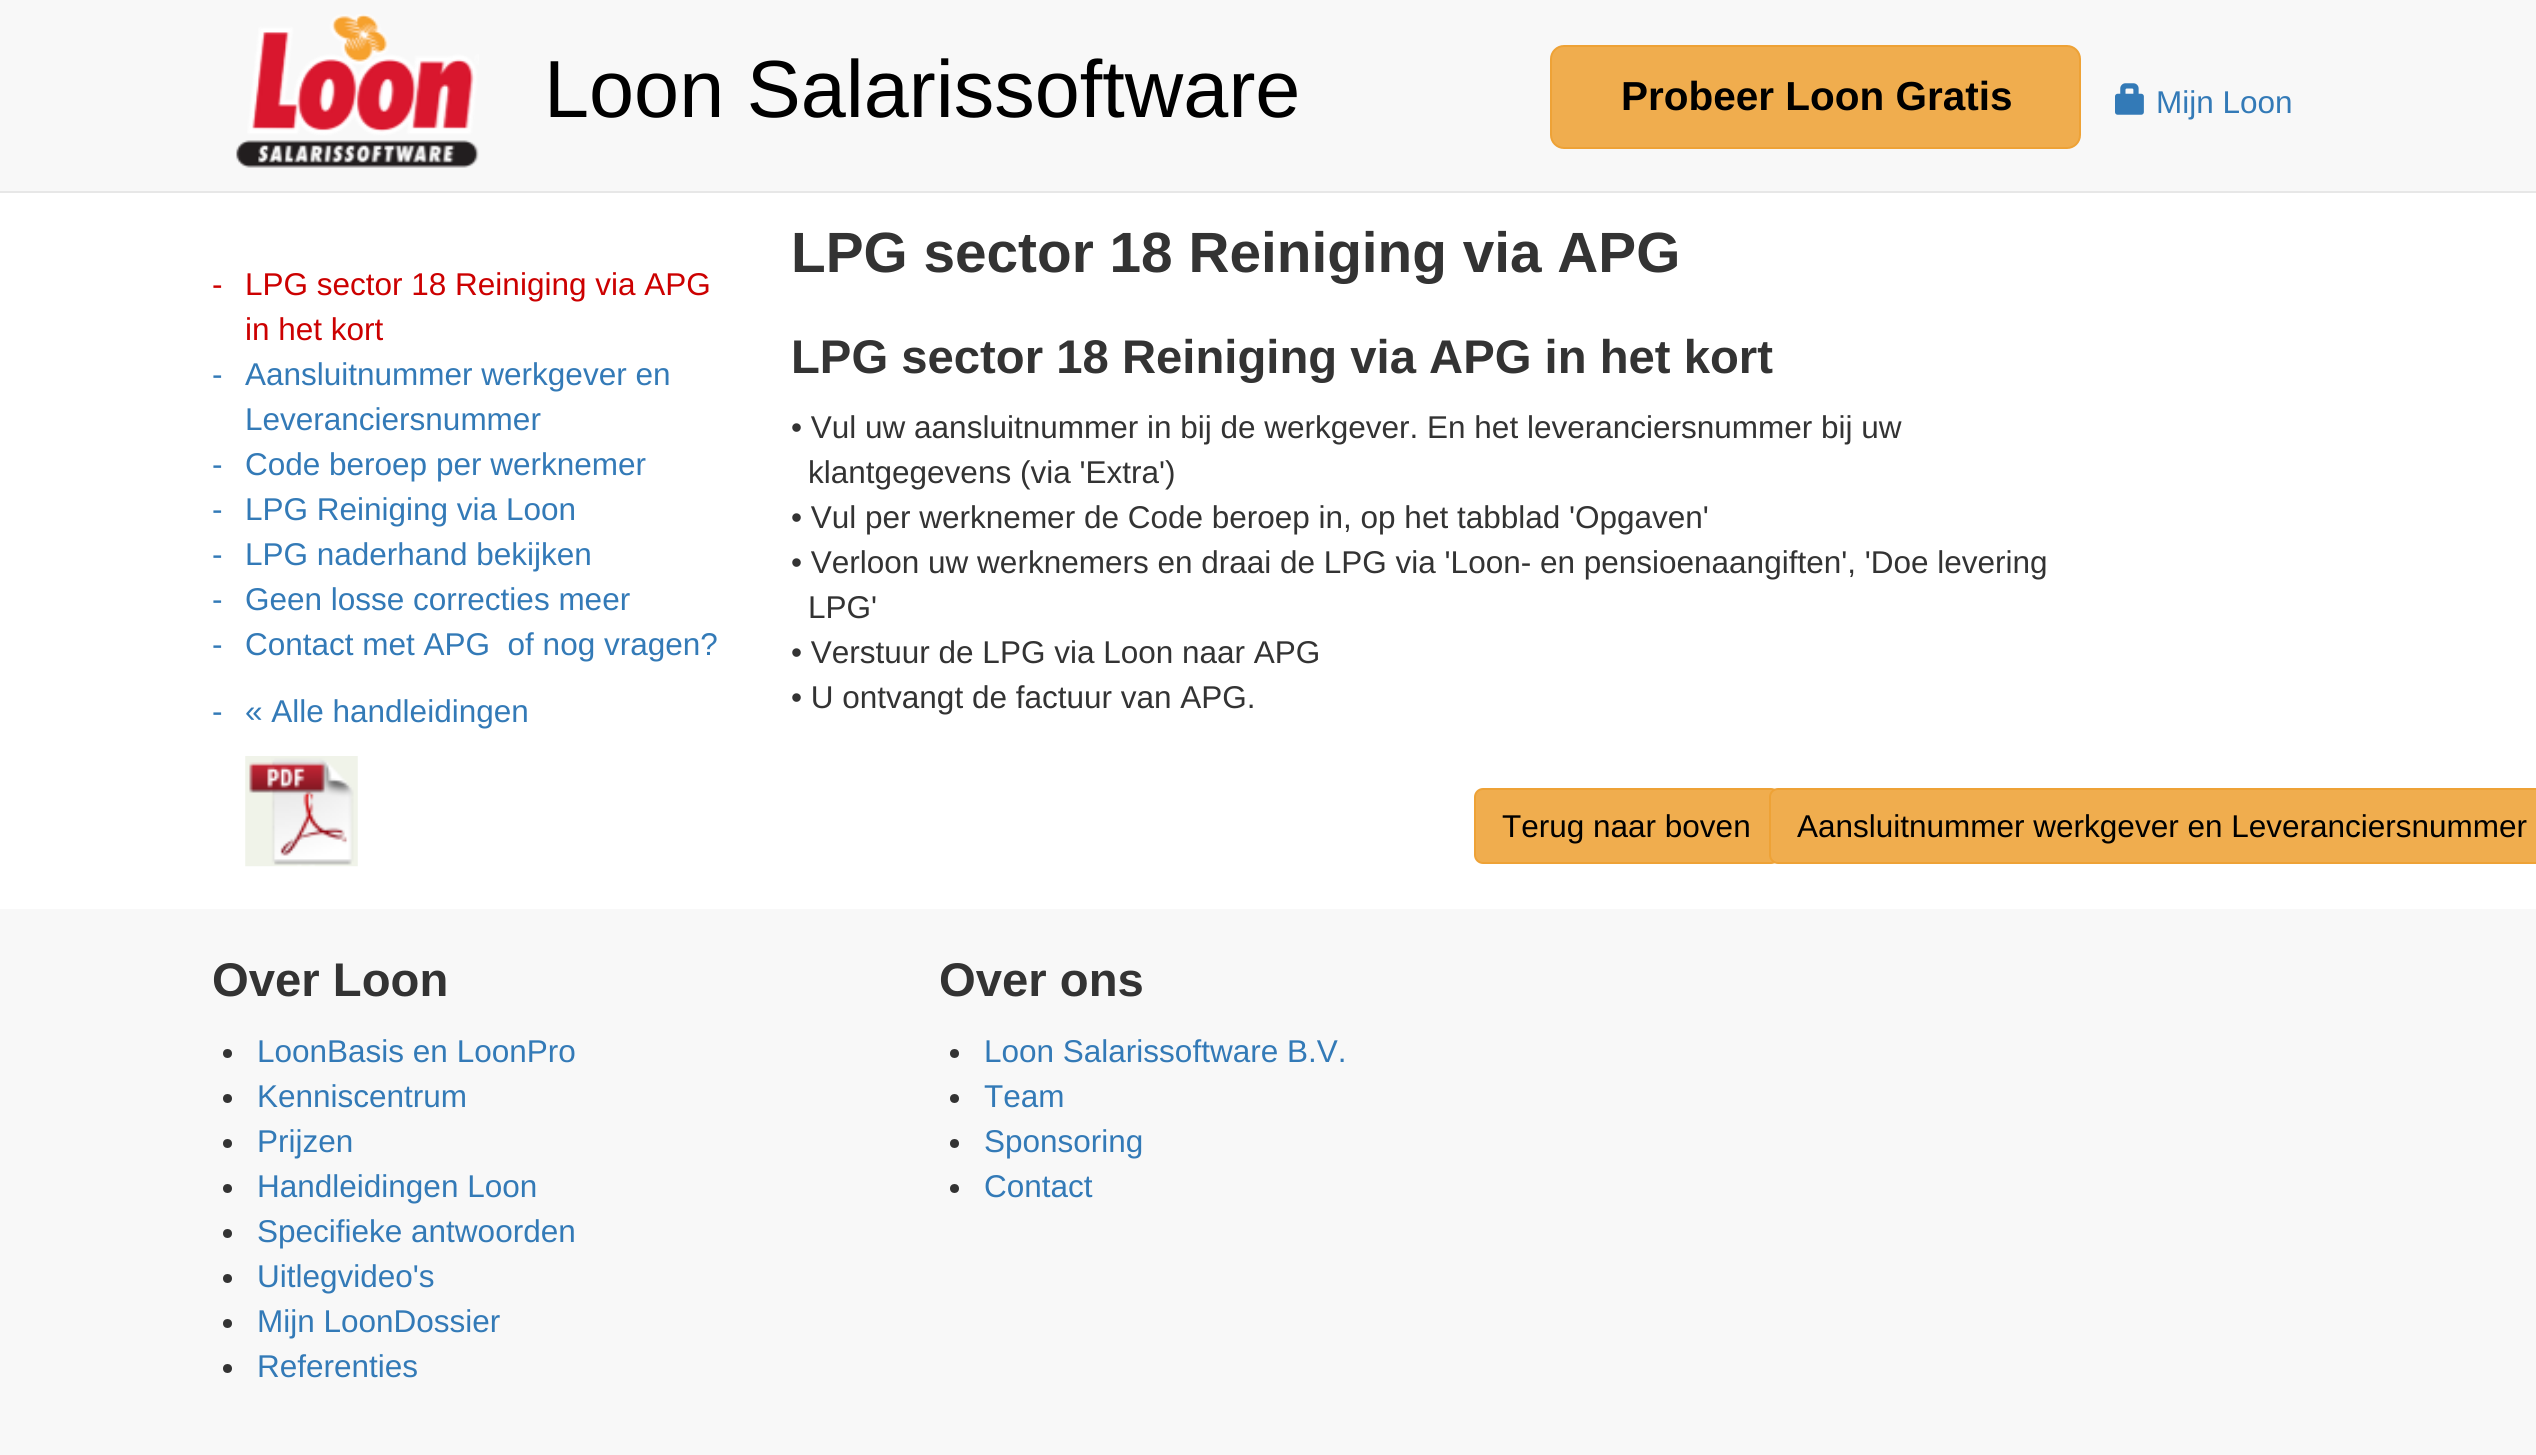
#include <cairo.h>
#include <math.h>
#include <stddef.h>

static cairo_t *c;
static void C(unsigned color){cairo_set_source_rgb(c, (color >> 16) / 255.0, (color >> 8 & 255) / 255.0, (color & 255) / 255.0);}
static void F(const char *family, double size, int italic, int bold){cairo_select_font_face(c, family, italic ? CAIRO_FONT_SLANT_ITALIC : CAIRO_FONT_SLANT_NORMAL,bold ? CAIRO_FONT_WEIGHT_BOLD : CAIRO_FONT_WEIGHT_NORMAL);cairo_set_font_size(c, size);}
static void T(double x, double y, const char *s){cairo_move_to(c, x, y);cairo_show_text(c, s);}
static void R(double x, double y, double w, double h){cairo_rectangle(c, x, y, w, h);cairo_fill(c);}
static void Q(double x, double y, double w, double h, double r){cairo_new_sub_path(c);cairo_arc(c, x + w - r, y + h - r, r, 0, M_PI / 2);cairo_arc(c, x + r, y + h - r, r, M_PI / 2, M_PI);cairo_arc(c, x + r, y + r, r, M_PI, 1.5 * M_PI);cairo_arc(c, x + w - r, y + r, r, 1.5 * M_PI, 2 * M_PI);cairo_close_path(c);}
static void I(const char *path, double x, double y, double w, double h){cairo_surface_t *image = cairo_image_surface_create_from_png(path);cairo_save(c);cairo_set_source_surface(c, image, x, y);cairo_rectangle(c, x, y, w, h);cairo_fill(c);cairo_restore(c);cairo_surface_destroy(image);}
int main(void) {
cairo_surface_t *surface = cairo_image_surface_create(CAIRO_FORMAT_RGB24, 2536, 1455);
c = cairo_create(surface);
cairo_font_options_t *options = cairo_font_options_create();
cairo_font_options_set_hint_metrics(options, CAIRO_HINT_METRICS_OFF);
cairo_font_options_set_hint_style(options, CAIRO_HINT_STYLE_NONE);
cairo_set_font_options(c, options);
cairo_set_miter_limit(c, 4);
C(0xffffff);
cairo_paint(c);
C(0xf8f8f8);
R(0,0,2536,191);
C(0xe7e7e7);
R(0,191,2536,2);
I("1.png",236,14,243,154);
F("Liberation Sans",81,0,0);
C(0x000000);
T(544,117,"Loon Salarissoftware");
C(0xf0ad4e);
Q(1551,46,529,102,13);
cairo_fill_preserve(c);
C(0xeea236);
cairo_stroke(c);
F("Liberation Sans",40.5,0,1);
C(0x000000);
T(1621,110,"Probeer Loon Gratis");
I("2.png",2115,83,29,32);
F("Liberation Sans",31.5,0,0);
C(0x337ab7);
T(2156,113,"Mijn Loon");
C(0xcc0000);
T(212,295,"-");
T(245,295,"LPG sector 18 Reiniging via APG");
T(245,340,"in het kort");
C(0x337ab7);
T(212,385,"-");
T(245,385,"Aansluitnummer werkgever en");
T(245,430,"Leveranciersnummer");
T(212,475,"-");
T(245,475,"Code beroep per werknemer");
T(212,520,"-");
T(245,520,"LPG Reiniging via Loon");
T(212,565,"-");
T(245,565,"LPG naderhand bekijken");
T(212,610,"-");
T(245,610,"Geen losse correcties meer");
T(212,655,"-");
T(245,655,"Contact met APG  of nog vragen?");
T(212,722,"-");
T(245,722,"« Alle handleidingen");
I("3.png",245,756,113,111);
F("Liberation Sans",56.75,0,1);
C(0x333333);
T(791,272,"LPG sector 18 Reiniging via APG");
F("Liberation Sans",47.25,0,1);
T(791,373,"LPG sector 18 Reiniging via APG in het kort");
F("Liberation Sans",31.5,0,0);
T(791,438,"• Vul uw aansluitnummer in bij de werkgever. En het leveranciersnummer bij uw");
T(808,483,"klantgegevens (via 'Extra')");
T(791,528,"• Vul per werknemer de Code beroep in, op het tabblad 'Opgaven'");
T(791,573,"• Verloon uw werknemers en draai de LPG via 'Loon- en pensioenaangiften', 'Doe levering");
T(808,618,"LPG'");
T(791,663,"• Verstuur de LPG via Loon naar APG");
T(791,708,"• U ontvangt de factuur van APG.");
C(0xf0ad4e);
Q(1475,789,304,74,8);
cairo_fill_preserve(c);
C(0xeea236);
cairo_stroke(c);
C(0x000000);
T(1502,837,"Terug naar boven");
C(0xf0ad4e);
Q(1770,789,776,74,8);
cairo_fill_preserve(c);
C(0xeea236);
cairo_stroke(c);
C(0x000000);
T(1797,837,"Aansluitnummer werkgever en Leveranciersnummer");
C(0xf8f8f8);
R(0,909,2536,546);
F("Liberation Sans",47.25,0,1);
C(0x333333);
T(212,996,"Over Loon");
cairo_new_path(c);
cairo_arc(c,227.5,1053.5,4.5,0,2 * M_PI);
cairo_fill(c);
F("Liberation Sans",31.5,0,0);
C(0x337ab7);
T(257,1062,"LoonBasis en LoonPro");
C(0x333333);
cairo_new_path(c);
cairo_arc(c,227.5,1098.5,4.5,0,2 * M_PI);
cairo_fill(c);
C(0x337ab7);
T(257,1107,"Kenniscentrum");
C(0x333333);
cairo_new_path(c);
cairo_arc(c,227.5,1143.5,4.5,0,2 * M_PI);
cairo_fill(c);
C(0x337ab7);
T(257,1152,"Prijzen");
C(0x333333);
cairo_new_path(c);
cairo_arc(c,227.5,1188.5,4.5,0,2 * M_PI);
cairo_fill(c);
C(0x337ab7);
T(257,1197,"Handleidingen Loon");
C(0x333333);
cairo_new_path(c);
cairo_arc(c,227.5,1233.5,4.5,0,2 * M_PI);
cairo_fill(c);
C(0x337ab7);
T(257,1242,"Specifieke antwoorden");
C(0x333333);
cairo_new_path(c);
cairo_arc(c,227.5,1278.5,4.5,0,2 * M_PI);
cairo_fill(c);
C(0x337ab7);
T(257,1287,"Uitlegvideo's");
C(0x333333);
cairo_new_path(c);
cairo_arc(c,227.5,1323.5,4.5,0,2 * M_PI);
cairo_fill(c);
C(0x337ab7);
T(257,1332,"Mijn LoonDossier");
C(0x333333);
cairo_new_path(c);
cairo_arc(c,227.5,1368.5,4.5,0,2 * M_PI);
cairo_fill(c);
C(0x337ab7);
T(257,1377,"Referenties");
F("Liberation Sans",47.25,0,1);
C(0x333333);
T(939,996,"Over ons");
cairo_new_path(c);
cairo_arc(c,954.5,1053.5,4.5,0,2 * M_PI);
cairo_fill(c);
F("Liberation Sans",31.5,0,0);
C(0x337ab7);
T(984,1062,"Loon Salarissoftware B.V.");
C(0x333333);
cairo_new_path(c);
cairo_arc(c,954.5,1098.5,4.5,0,2 * M_PI);
cairo_fill(c);
C(0x337ab7);
T(984,1107,"Team");
C(0x333333);
cairo_new_path(c);
cairo_arc(c,954.5,1143.5,4.5,0,2 * M_PI);
cairo_fill(c);
C(0x337ab7);
T(984,1152,"Sponsoring");
C(0x333333);
cairo_new_path(c);
cairo_arc(c,954.5,1188.5,4.5,0,2 * M_PI);
cairo_fill(c);
C(0x337ab7);
T(984,1197,"Contact");
cairo_surface_write_to_png(surface, "o.png");
cairo_font_options_destroy(options);
cairo_destroy(c);
cairo_surface_destroy(surface);
return 0;
}
